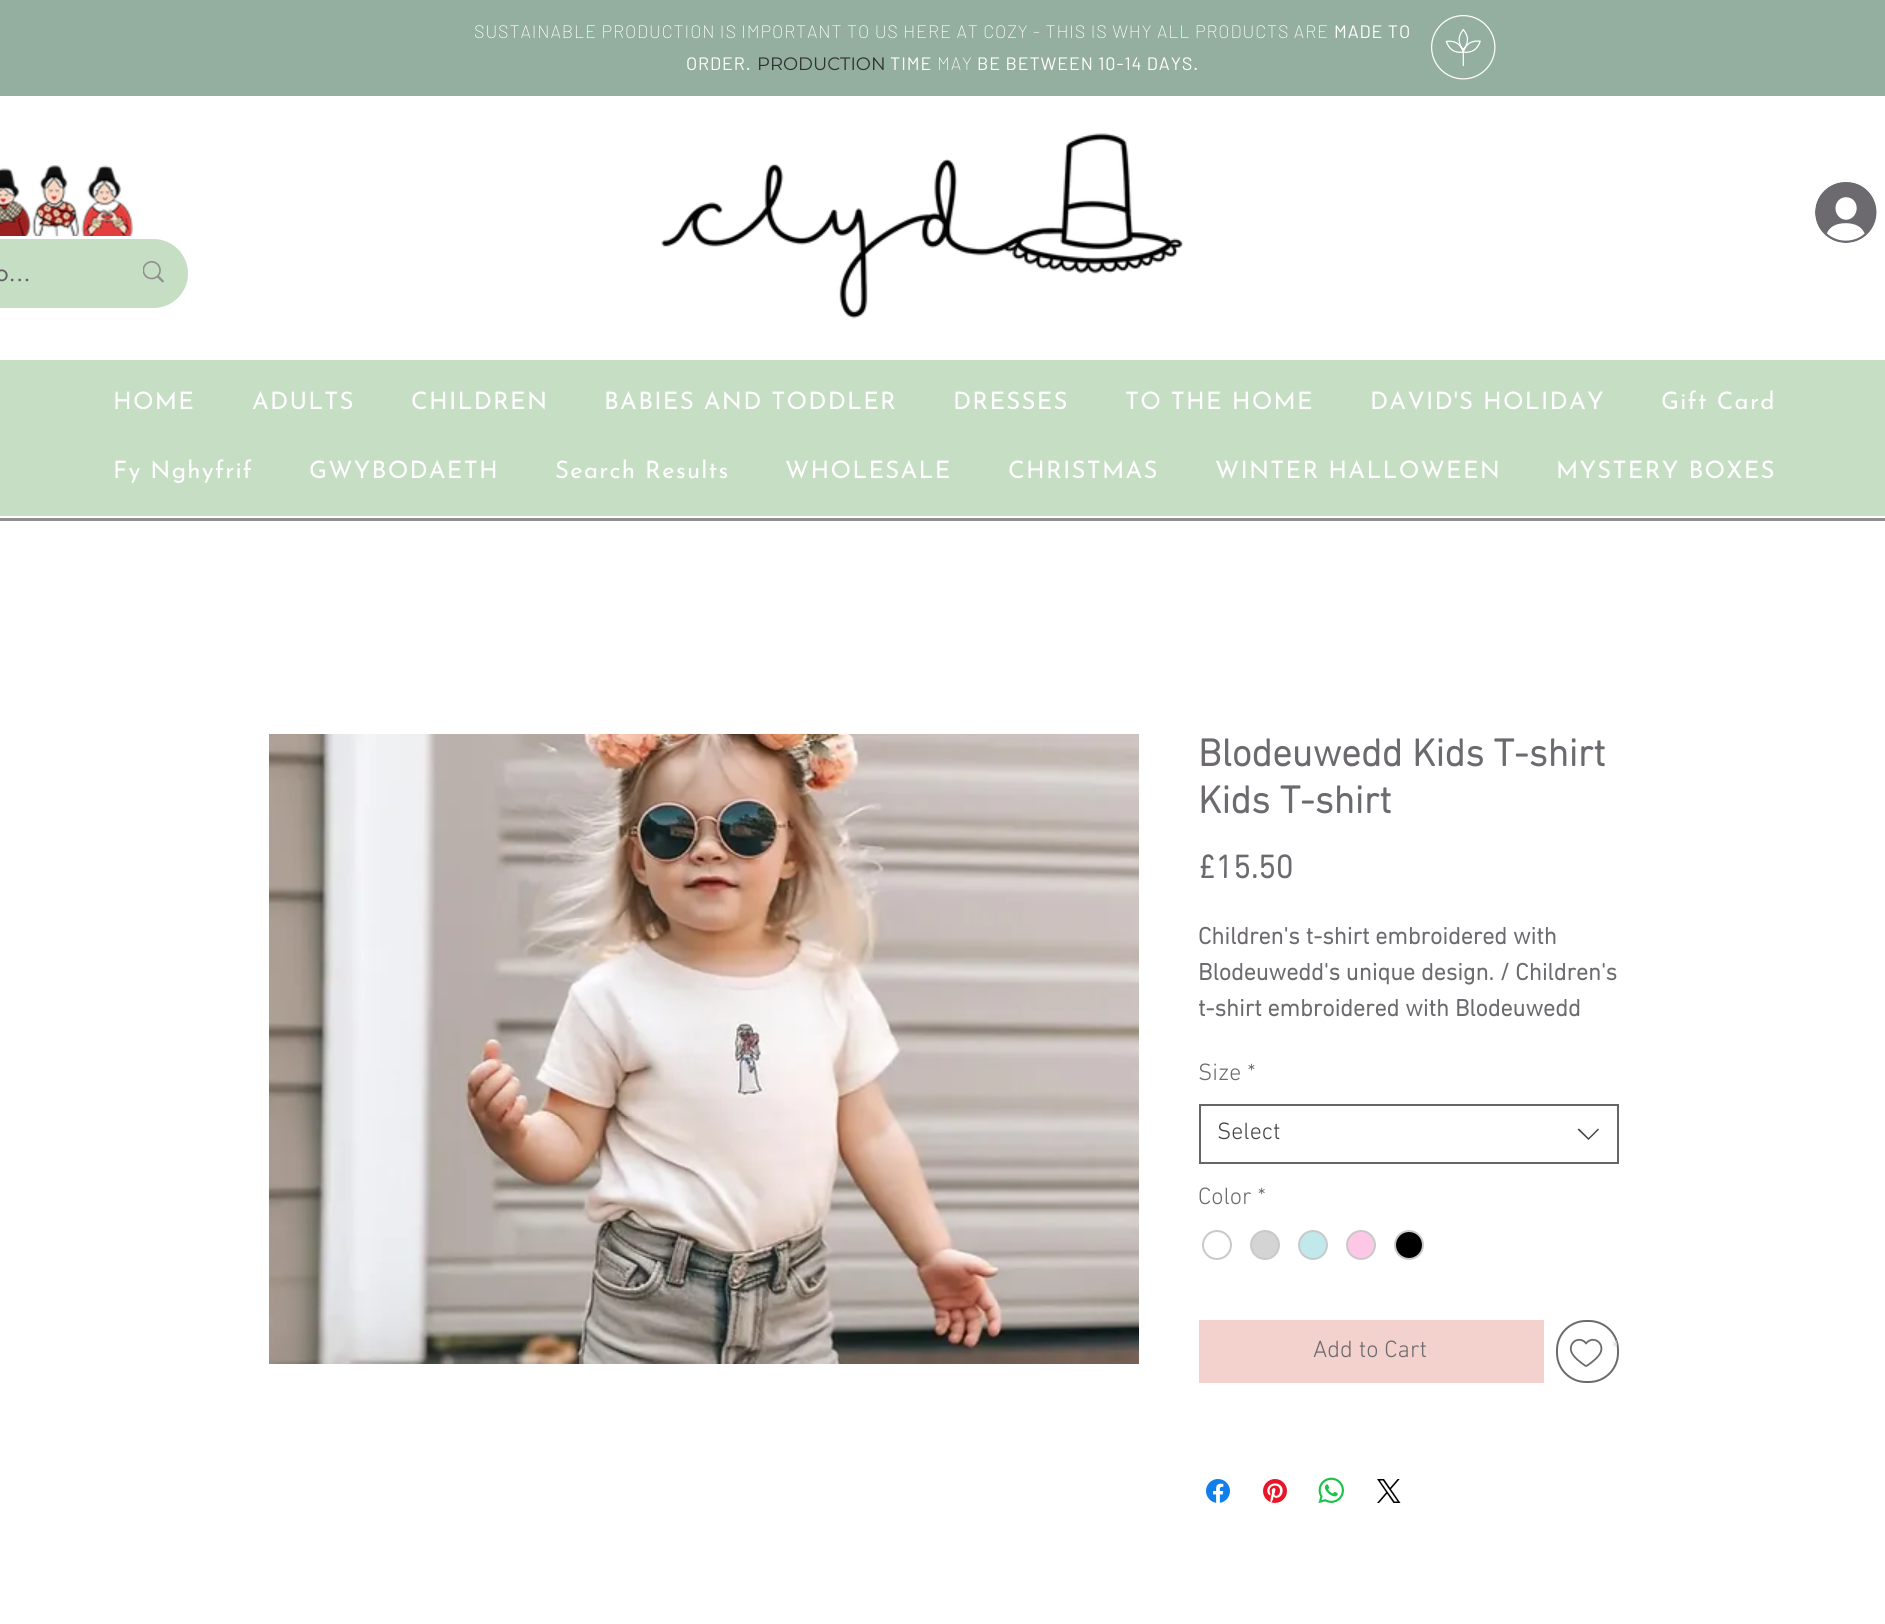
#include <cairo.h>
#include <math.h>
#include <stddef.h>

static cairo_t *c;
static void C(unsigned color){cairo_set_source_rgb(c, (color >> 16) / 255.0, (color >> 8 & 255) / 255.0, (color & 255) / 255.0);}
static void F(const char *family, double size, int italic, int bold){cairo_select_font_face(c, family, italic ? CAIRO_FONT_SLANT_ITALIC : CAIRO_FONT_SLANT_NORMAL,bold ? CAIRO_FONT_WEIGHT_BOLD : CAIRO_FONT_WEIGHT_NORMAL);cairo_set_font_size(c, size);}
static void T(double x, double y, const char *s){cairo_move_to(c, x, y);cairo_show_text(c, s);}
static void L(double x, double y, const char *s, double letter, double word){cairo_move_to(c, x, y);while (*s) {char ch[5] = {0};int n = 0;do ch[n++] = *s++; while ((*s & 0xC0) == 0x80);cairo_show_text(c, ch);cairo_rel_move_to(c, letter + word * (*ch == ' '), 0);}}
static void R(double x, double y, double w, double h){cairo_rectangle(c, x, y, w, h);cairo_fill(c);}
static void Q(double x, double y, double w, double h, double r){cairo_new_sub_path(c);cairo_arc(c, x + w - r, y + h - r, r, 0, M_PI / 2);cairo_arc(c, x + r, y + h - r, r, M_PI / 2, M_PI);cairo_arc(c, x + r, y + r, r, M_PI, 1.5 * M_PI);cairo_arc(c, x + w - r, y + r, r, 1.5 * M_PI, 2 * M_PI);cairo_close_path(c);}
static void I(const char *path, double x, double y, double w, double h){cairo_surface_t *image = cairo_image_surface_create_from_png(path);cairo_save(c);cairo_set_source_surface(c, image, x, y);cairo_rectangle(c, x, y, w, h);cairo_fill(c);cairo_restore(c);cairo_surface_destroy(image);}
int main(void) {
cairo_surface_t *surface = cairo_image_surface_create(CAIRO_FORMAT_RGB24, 1885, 1624);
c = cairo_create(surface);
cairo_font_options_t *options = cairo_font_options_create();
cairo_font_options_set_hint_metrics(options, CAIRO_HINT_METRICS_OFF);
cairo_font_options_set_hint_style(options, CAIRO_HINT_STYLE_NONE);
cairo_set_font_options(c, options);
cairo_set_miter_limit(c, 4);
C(0xffffff);
cairo_paint(c);
C(0x94af9f);
R(0,0,1885,96);
F("Barlow ExtraLight",18,0,0);
C(0xffffff);
L(474,38,"SUSTAINABLE PRODUCTION IS IMPORTANT TO US HERE AT COZY - THIS IS WHY ALL PRODUCTS ARE",.9,0);
F("Barlow",18,0,0);
L(1334,38,"MADE TO",.9,0);
L(686,70,"ORDER.",.9,0);
F("Montserrat",18,0,0);
C(0x303030);
T(757,70,"PRODUCTION");
F("Barlow",18,0,0);
C(0xffffff);
L(890,70,"TIME",.9,0);
F("Barlow ExtraLight",18,0,0);
L(937,70,"MAY",.9,0);
F("Barlow",18,0,0);
L(977,70,"BE BETWEEN 10-14 DAYS.",.9,0);
I("1.png",1431,15,65,65);
I("2.png",0,165,134,71);
I("3.png",661,133,522,186);
I("4.png",1815,182,62,61);
C(0xc6dec4);
Q(-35,239,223,69,34.5);
cairo_fill(c);
F("futura",24,0,0);
C(0x606060);
T(-5,281,"o...");
I("5.png",143,261,21,22);
C(0xc6dec4);
R(0,360,1885,156);
F("Josefin Sans",24,0,0);
C(0xffffff);
L(113,409,"HOME",1.25,0);
L(252,409,"ADULTS",1.25,0);
L(411,409,"CHILDREN",1.25,0);
L(604,409,"BABIES AND TODDLER",1.25,0);
L(953,409,"DRESSES",1.25,0);
L(1125,409,"TO THE HOME",1.25,0);
L(1370,409,"DAVID'S HOLIDAY",1.25,0);
L(1661,409,"Gift Card",1.25,0);
L(113,478,"Fy Nghyfrif",1.25,0);
L(309,478,"GWYBODAETH",1.25,0);
L(555,478,"Search Results",1.25,0);
L(785,478,"WHOLESALE",1.25,0);
L(1008,478,"CHRISTMAS",1.25,0);
L(1215,478,"WINTER HALLOWEEN",1.25,0);
L(1556,478,"MYSTERY BOXES",1.25,0);
C(0x909090);
R(0,518,1885,3);
I("6.png",269,734,870,630);
F("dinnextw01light",39,0,1);
C(0x6c6a6f);
T(1198,766,"Blodeuwedd Kids T-shirt");
T(1198,813,"Kids T-shirt");
F("dinnextw01light",33,0,1);
T(1198,878,"£15.50");
F("dinnextw01light",24,0,1);
T(1198,944,"Children's t-shirt embroidered with");
T(1198,980,"Blodeuwedd's unique design. / Children's");
T(1198,1016,"t-shirt embroidered with Blodeuwedd");
F("dinnextw01light Light",24,0,0);
T(1198,1080,"Size *");
cairo_rectangle(c,1200,1105,418,58);
C(0x666666);
cairo_stroke(c);
C(0x444444);
T(1217,1139,"Select");
cairo_set_fill_rule(c,CAIRO_FILL_RULE_EVEN_ODD);
cairo_new_path(c);
cairo_move_to(c,1598,1128.5);
cairo_line_to(c,1599,1129.5);
cairo_line_to(c,1588.5,1140);
cairo_line_to(c,1577.5,1129.5);
cairo_line_to(c,1579,1128.5);
cairo_line_to(c,1588.5,1138);
cairo_close_path(c);
cairo_fill(c);
C(0x6c6a6f);
T(1198,1204,"Color *");
cairo_new_path(c);
cairo_arc(c,1217,1245,14,0,2 * M_PI);
C(0xc9c9c9);
cairo_stroke(c);
C(0xd4d4d4);
cairo_arc(c,1265,1245,14,0,2 * M_PI);
cairo_fill_preserve(c);
C(0xc9c9c9);
cairo_stroke(c);
C(0xc1e9eb);
cairo_arc(c,1313,1245,14,0,2 * M_PI);
cairo_fill_preserve(c);
C(0xc9c9c9);
cairo_stroke(c);
C(0xffc7e6);
cairo_arc(c,1361,1245,14,0,2 * M_PI);
cairo_fill_preserve(c);
C(0xc9c9c9);
cairo_stroke(c);
C(0x000000);
cairo_arc(c,1409,1245,14,0,2 * M_PI);
cairo_fill_preserve(c);
C(0xc9c9c9);
cairo_stroke(c);
C(0xf3d2ce);
R(1199,1320,345,63);
C(0x6c6a6f);
T(1313,1357,"Add to Cart");
Q(1557,1321,61,61,29);
cairo_stroke(c);
I("7.png",1569,1338,34,29);
cairo_save(c);
cairo_set_fill_rule(c,CAIRO_FILL_RULE_WINDING);
cairo_rectangle(c,1557,1328,60,48);
cairo_clip(c);
F("dinnextw01light Light",24,1,0);
C(0xdfdfe0);
T(1608,1357,"*");
cairo_restore(c);
I("8.png",1206,1479,24,24);
I("9.png",1263,1479,24,24);
I("10.png",1318,1477,26,27);
I("11.png",1377,1479,24,24);
cairo_surface_write_to_png(surface, "o.png");
cairo_font_options_destroy(options);
cairo_destroy(c);
cairo_surface_destroy(surface);
return 0;
}
